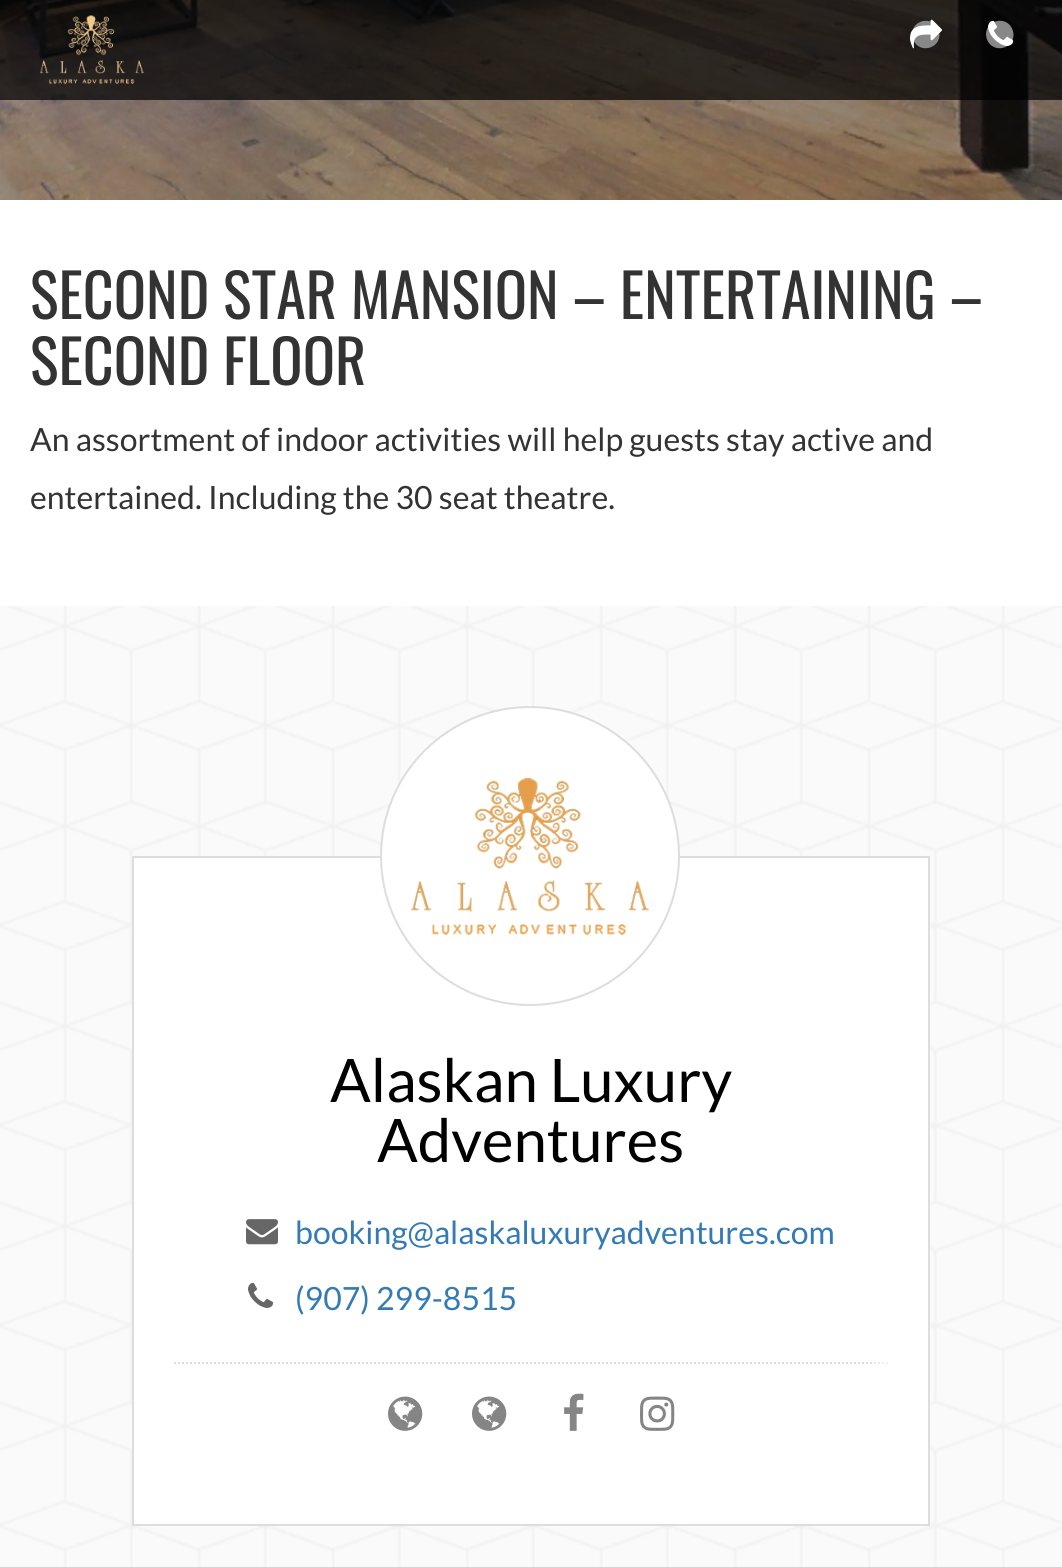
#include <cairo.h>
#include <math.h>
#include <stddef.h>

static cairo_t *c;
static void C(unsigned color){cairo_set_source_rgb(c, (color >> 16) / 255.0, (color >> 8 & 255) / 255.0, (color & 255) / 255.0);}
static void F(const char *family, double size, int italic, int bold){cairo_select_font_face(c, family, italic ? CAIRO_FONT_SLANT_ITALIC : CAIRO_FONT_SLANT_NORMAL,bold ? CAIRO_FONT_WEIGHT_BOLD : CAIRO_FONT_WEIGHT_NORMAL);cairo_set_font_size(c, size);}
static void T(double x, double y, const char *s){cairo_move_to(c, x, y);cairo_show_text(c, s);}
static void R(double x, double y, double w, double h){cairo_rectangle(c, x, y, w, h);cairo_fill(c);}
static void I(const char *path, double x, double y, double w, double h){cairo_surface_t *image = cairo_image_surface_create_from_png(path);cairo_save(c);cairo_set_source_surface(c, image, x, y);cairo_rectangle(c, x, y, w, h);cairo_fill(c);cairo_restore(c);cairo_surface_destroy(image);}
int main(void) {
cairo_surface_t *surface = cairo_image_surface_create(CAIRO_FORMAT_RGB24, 1062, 1567);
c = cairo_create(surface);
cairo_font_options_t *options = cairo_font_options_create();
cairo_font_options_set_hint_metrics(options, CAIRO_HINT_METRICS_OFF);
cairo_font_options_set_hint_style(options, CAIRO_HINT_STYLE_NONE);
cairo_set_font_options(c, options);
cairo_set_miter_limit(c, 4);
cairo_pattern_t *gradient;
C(0xffffff);
cairo_paint(c);
I("4.png",0,0,1062,200);
cairo_set_source_rgba(c,0,0,0,0.7);
R(0,0,1062,100);
I("1.png",40,15,104,69);
C(0x888888);
cairo_new_path(c);
cairo_move_to(c,937.5,27.5);
cairo_curve_to(c,939,30,939.5,33,939.5,35.5);
cairo_curve_to(c,938.5,49,920.5,53,914,41.5);
cairo_curve_to(c,912.5,39,912,36.5,912,33.5);
cairo_curve_to(c,913,20,931,16,937.5,27.5);
cairo_close_path(c);
cairo_fill(c);
I("2.png",910,19,32,30);
cairo_new_path(c);
cairo_move_to(c,1011.5,27.5);
cairo_curve_to(c,1013,30,1013.5,33,1013.5,35.5);
cairo_curve_to(c,1012.5,49,994.5,53,988,41.5);
cairo_curve_to(c,986.5,39,986,36.5,986,33.5);
cairo_curve_to(c,987,20,1005,16,1011.5,27.5);
cairo_close_path(c);
cairo_fill(c);
I("3.png",988,20,26,26);
F("Oswald",60,0,0);
C(0x333333);
T(30,319,"SECOND STAR MANSION – ENTERTAINING –");
T(30,385,"SECOND FLOOR");
F("Lato",32,0,0);
T(30,451,"An assortment of indoor activities will help guests stay active and");
T(30,509,"entertained. Including the 30 seat theatre.");
C(0xfafafa);
R(0,606,1062,961);
I("5.png",0,606,1062,961);
C(0xffffff);
R(134,858,764,666);
cairo_rectangle(c,133,857,796,668);
C(0xdddddd);
cairo_stroke(c);
C(0xffffff);
cairo_arc(c,530,856,149,0,2 * M_PI);
cairo_fill_preserve(c);
C(0xdddddd);
cairo_stroke(c);
I("6.png",411,777,238,159);
F("Lato",60,0,0);
C(0x000000);
T(330,1102,"Alaskan Luxury");
T(377,1162,"Adventures");
cairo_new_path(c);
cairo_move_to(c,174,1363);
cairo_line_to(c,888,1363);
C(0xdddddd);
cairo_set_dash(c,(double[]){2,2},2,0);
cairo_stroke(c);
gradient = cairo_pattern_create_linear(868,1191,928,1191);
cairo_pattern_add_color_stop_rgba(gradient,0,1,1,1,0);
cairo_pattern_add_color_stop_rgba(gradient,.5,1,1,1,1);
cairo_set_source(c,gradient);
cairo_pattern_destroy(gradient);
R(870,858,58,666);
I("7.png",246,1219,32,26);
F("Lato",32,0,0);
C(0x337ab7);
T(295,1244,"booking@alaskaluxuryadventures.com");
I("8.png",248,1282,26,26);
T(295,1310,"(907) 299-8515");
I("9.png",388,1396,35,35);
I("9.png",472,1396,35,35);
I("10.png",564,1393,20,38);
I("11.png",640,1396,35,35);
cairo_surface_write_to_png(surface, "o.png");
cairo_font_options_destroy(options);
cairo_destroy(c);
cairo_surface_destroy(surface);
return 0;
}
